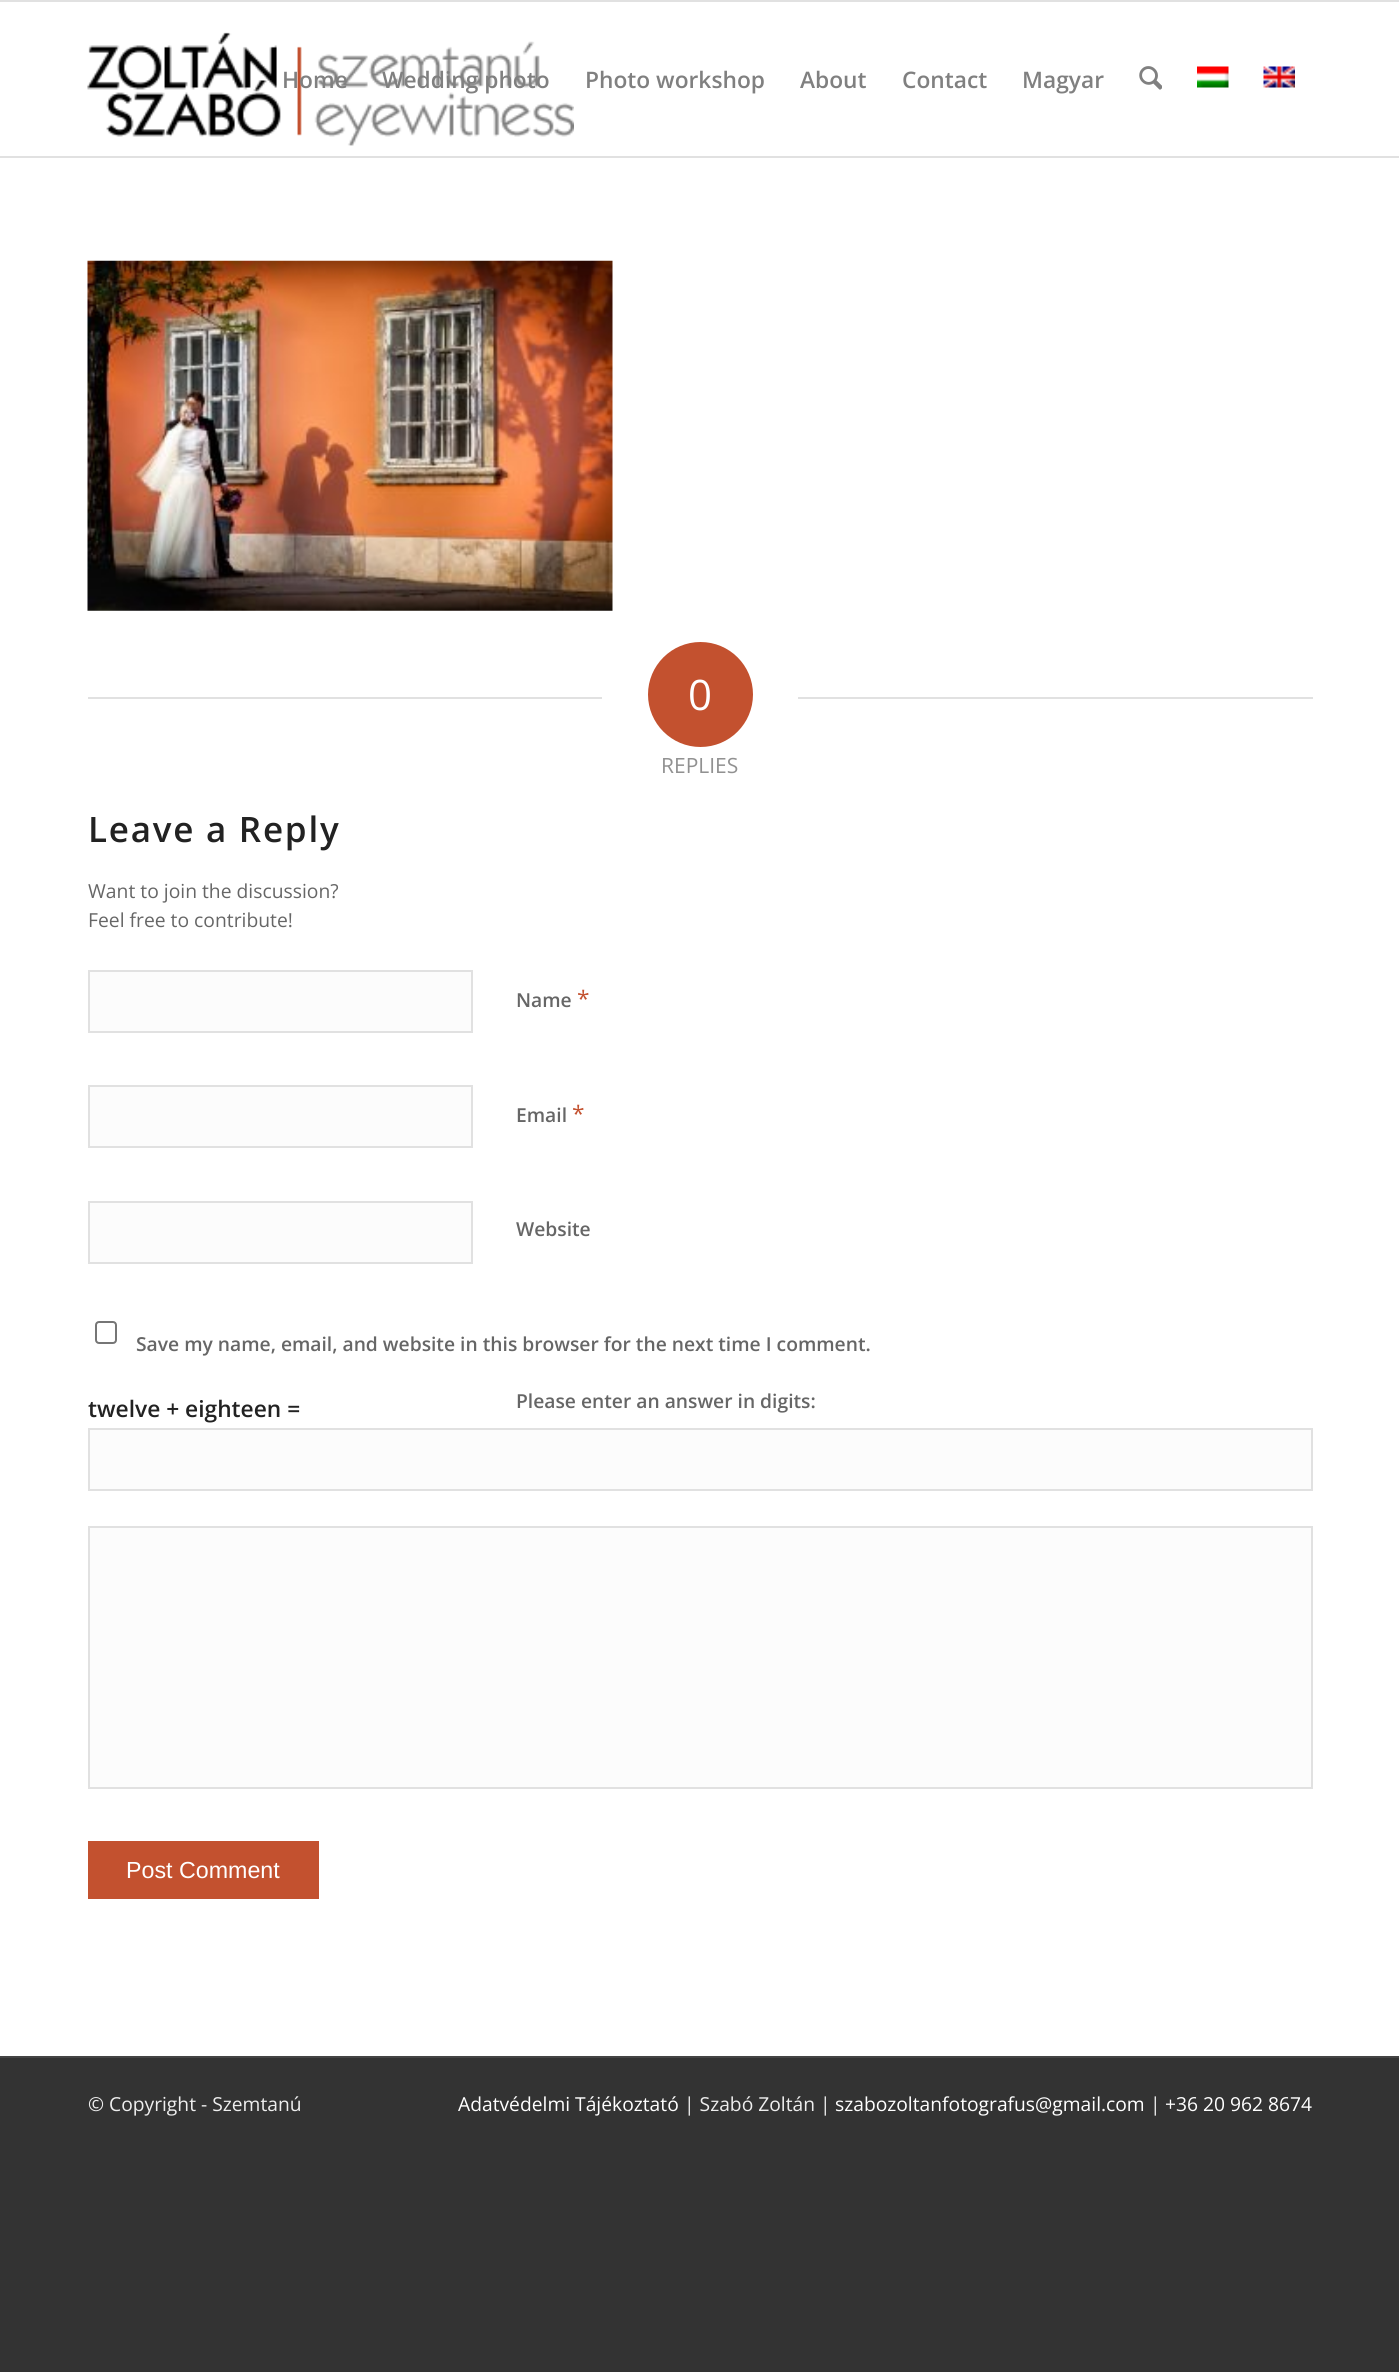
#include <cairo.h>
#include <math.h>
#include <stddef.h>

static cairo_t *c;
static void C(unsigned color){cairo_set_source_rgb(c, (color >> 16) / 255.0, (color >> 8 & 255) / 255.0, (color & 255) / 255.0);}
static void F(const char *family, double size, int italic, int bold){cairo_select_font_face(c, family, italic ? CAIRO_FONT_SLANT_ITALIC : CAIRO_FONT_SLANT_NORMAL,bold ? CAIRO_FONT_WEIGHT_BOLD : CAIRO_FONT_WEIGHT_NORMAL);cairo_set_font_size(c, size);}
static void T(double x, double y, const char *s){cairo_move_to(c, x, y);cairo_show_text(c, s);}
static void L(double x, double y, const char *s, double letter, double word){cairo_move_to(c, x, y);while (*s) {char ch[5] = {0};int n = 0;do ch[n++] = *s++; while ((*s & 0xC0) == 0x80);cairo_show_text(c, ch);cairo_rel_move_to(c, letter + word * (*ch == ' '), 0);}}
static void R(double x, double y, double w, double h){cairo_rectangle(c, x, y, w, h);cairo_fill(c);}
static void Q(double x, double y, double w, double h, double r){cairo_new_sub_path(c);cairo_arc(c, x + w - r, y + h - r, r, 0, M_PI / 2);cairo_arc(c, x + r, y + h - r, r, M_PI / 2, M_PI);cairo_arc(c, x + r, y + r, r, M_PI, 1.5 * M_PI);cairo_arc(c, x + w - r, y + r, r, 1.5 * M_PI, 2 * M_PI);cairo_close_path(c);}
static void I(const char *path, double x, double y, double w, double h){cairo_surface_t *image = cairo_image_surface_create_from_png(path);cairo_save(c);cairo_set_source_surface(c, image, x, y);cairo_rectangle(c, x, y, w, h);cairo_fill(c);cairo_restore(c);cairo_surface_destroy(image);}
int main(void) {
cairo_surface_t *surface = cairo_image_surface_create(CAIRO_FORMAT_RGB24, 1399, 2372);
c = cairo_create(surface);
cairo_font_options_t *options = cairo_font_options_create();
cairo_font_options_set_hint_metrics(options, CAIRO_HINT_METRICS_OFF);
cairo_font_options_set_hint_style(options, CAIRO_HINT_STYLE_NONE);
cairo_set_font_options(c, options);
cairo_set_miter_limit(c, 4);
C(0x333333);
cairo_paint(c);
C(0xffffff);
R(0,2,1399,2054);
C(0xe1e1e1);
R(0,0,1399,2);
R(0,156,1399,2);
I("1.png",87,32,487,114);
F("Open Sans SemiBold",22.75,0,0);
C(0x808080);
T(282,88,"Home");
T(382,88,"Wedding photo");
T(585,88,"Photo workshop");
T(800,88,"About");
T(902,88,"Contact");
T(1022,88,"Magyar");
I("2.png",1139,66,23,24);
I("3.png",1197,66,32,22);
I("4.png",1263,66,32,22);
I("5.png",87,260,526,351);
C(0xe1e1e1);
R(88,697,514,2);
C(0xc3512f);
cairo_arc(c,700.5,694.5,52.5,0,2 * M_PI);
cairo_fill(c);
F("Open Sans",42,0,0);
C(0xffffff);
T(688,710,"0");
C(0xe1e1e1);
R(798,697,515,2);
F("Open Sans",21,0,0);
C(0x919191);
T(661,773,"REPLIES");
F("Open Sans SemiBold",35,0,0);
C(0x222222);
L(88,842,"Leave a Reply",1.75,0);
F("Open Sans",19.3,0,0);
C(0x666666);
T(88,898,"Want to join the discussion?");
T(88,927,"Feel free to contribute!");
C(0xfcfcfc);
cairo_rectangle(c,89,971,383,61);
cairo_fill_preserve(c);
C(0xe1e1e1);
cairo_stroke(c);
F("Open Sans SemiBold",19.25,0,0);
C(0x666666);
T(516,1007,"Name");
F("Open Sans",22.75,0,0);
C(0xc3512f);
T(577,1007,"*");
C(0xfcfcfc);
cairo_rectangle(c,89,1086,383,61);
cairo_fill_preserve(c);
C(0xe1e1e1);
cairo_stroke(c);
F("Open Sans SemiBold",19.25,0,0);
C(0x666666);
T(516,1122,"Email");
F("Open Sans",22.75,0,0);
C(0xc3512f);
T(572,1122,"*");
C(0xfcfcfc);
cairo_rectangle(c,89,1202,383,61);
cairo_fill_preserve(c);
C(0xe1e1e1);
cairo_stroke(c);
F("Open Sans SemiBold",19.25,0,0);
C(0x666666);
T(516,1236,"Website");
Q(96,1322,20,21,3);
C(0x767676);
cairo_stroke(c);
C(0x666666);
T(136,1351,"Save my name, email, and website in this browser for the next time I comment.");
F("Open Sans SemiBold",22.75,0,0);
C(0x222222);
T(88,1417,"twelve + eighteen =");
C(0xfcfcfc);
cairo_rectangle(c,89,1429,1223,61);
cairo_fill_preserve(c);
C(0xe1e1e1);
cairo_stroke(c);
F("Open Sans SemiBold",19.25,0,0);
C(0x666666);
T(516,1408,"Please enter an answer in digits:");
C(0xfcfcfc);
cairo_rectangle(c,89,1527,1223,261);
cairo_fill_preserve(c);
C(0xe1e1e1);
cairo_stroke(c);
C(0xc3512f);
R(88,1841,231,58);
F("Liberation Sans",23.25,0,0);
C(0xffffff);
T(126,1878,"Post Comment");
C(0x444444);
R(0,2056,1399,2);
F("Open Sans",19.25,0,0);
C(0xeeeeee);
T(88,2111,"© Copyright - Szemtanú");
C(0xffffff);
T(458,2111,"Adatvédelmi Tájékoztató");
C(0xeeeeee);
T(684,2111,"| Szabó Zoltán |");
C(0xffffff);
T(835,2111,"szabozoltanfotografus@gmail.com");
C(0xeeeeee);
T(1150,2111,"|");
C(0xffffff);
T(1165,2111,"+36 20 962 8674");
cairo_surface_write_to_png(surface, "o.png");
cairo_font_options_destroy(options);
cairo_destroy(c);
cairo_surface_destroy(surface);
return 0;
}
